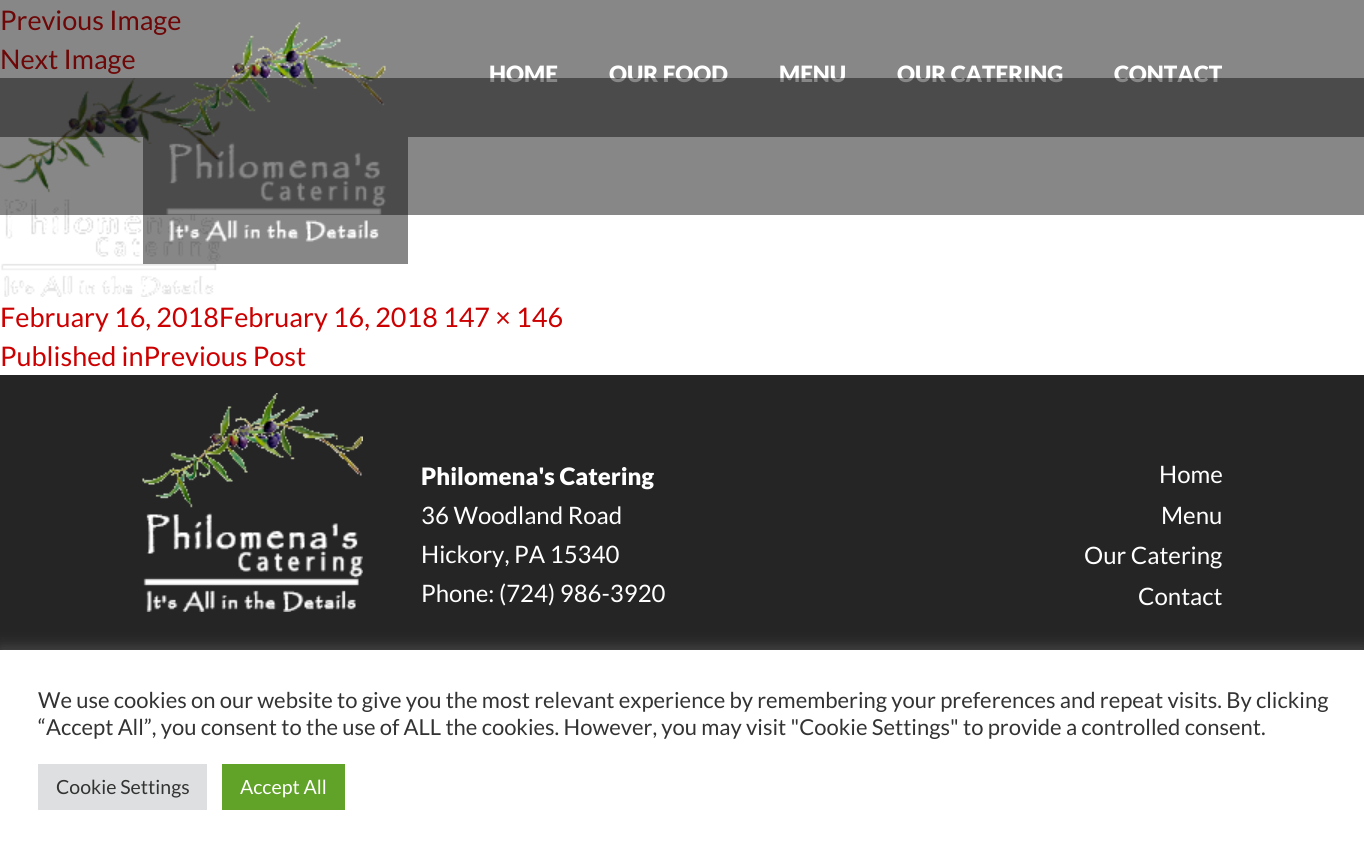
#include <cairo.h>
#include <math.h>
#include <stddef.h>

static cairo_t *c;
static void C(unsigned color){cairo_set_source_rgb(c, (color >> 16) / 255.0, (color >> 8 & 255) / 255.0, (color & 255) / 255.0);}
static void F(const char *family, double size, int italic, int bold){cairo_select_font_face(c, family, italic ? CAIRO_FONT_SLANT_ITALIC : CAIRO_FONT_SLANT_NORMAL,bold ? CAIRO_FONT_WEIGHT_BOLD : CAIRO_FONT_WEIGHT_NORMAL);cairo_set_font_size(c, size);}
static void T(double x, double y, const char *s){cairo_move_to(c, x, y);cairo_show_text(c, s);}
static void R(double x, double y, double w, double h){cairo_rectangle(c, x, y, w, h);cairo_fill(c);}
static void Q(double x, double y, double w, double h, double r){cairo_new_sub_path(c);cairo_arc(c, x + w - r, y + h - r, r, 0, M_PI / 2);cairo_arc(c, x + r, y + h - r, r, M_PI / 2, M_PI);cairo_arc(c, x + r, y + r, r, M_PI, 1.5 * M_PI);cairo_arc(c, x + w - r, y + r, r, 1.5 * M_PI, 2 * M_PI);cairo_close_path(c);}
static void S(double x, double y, double w, double h, double r, double blur, double alpha){cairo_push_group_with_content(c, CAIRO_CONTENT_ALPHA);cairo_set_operator(c, CAIRO_OPERATOR_SOURCE);for (int i = 15; i >= -15 && fmin(w, h) + blur * i / 3 > 0; i -= 2) {double e = blur * i / 6;cairo_set_source_rgba(c, 0, 0, 0, alpha * erfc((i - 1) / 8.5) / 2);Q(x - e, y - e, w + 2 * e, h + 2 * e, fmax(0, fmin(r + e + blur * .6, fmin(w, h) / 2 + e)));cairo_fill(c);}cairo_pattern_t *soft = cairo_pop_group(c);cairo_mask(c, soft);cairo_pattern_destroy(soft);}
static void I(const char *path, double x, double y, double w, double h){cairo_surface_t *image = cairo_image_surface_create_from_png(path);cairo_save(c);cairo_set_source_surface(c, image, x, y);cairo_rectangle(c, x, y, w, h);cairo_fill(c);cairo_restore(c);cairo_surface_destroy(image);}
int main(void) {
cairo_surface_t *surface = cairo_image_surface_create(CAIRO_FORMAT_RGB24, 1364, 855);
c = cairo_create(surface);
cairo_font_options_t *options = cairo_font_options_create();
cairo_font_options_set_hint_metrics(options, CAIRO_HINT_METRICS_OFF);
cairo_font_options_set_hint_style(options, CAIRO_HINT_STYLE_NONE);
cairo_set_font_options(c, options);
cairo_set_miter_limit(c, 4);
C(0xffffff);
cairo_paint(c);
F("Lato",27,0,0);
C(0xcc0000);
T(0,30,"Previous Image");
T(0,69,"Next Image");
I("1.png",0,78,221,219);
cairo_set_source_rgba(c,0.067,0.067,0.067,0.5);
R(0,0,1364,137);
R(143,137,265,127);
I("2.png",165,22,221,220);
F("Lato Black",22.5,0,0);
C(0xffffff);
T(489,82,"HOME");
T(609,82,"OUR FOOD");
T(779,82,"MENU");
T(897,82,"OUR CATERING");
T(1114,82,"CONTACT");
cairo_set_source_rgba(c,0.067,0.067,0.067,0.5);
R(0,78,1364,137);
F("Lato",27,0,0);
C(0xcc0000);
T(0,327,"February 16, 2018February 16, 2018 147 × 146");
T(0,366,"Published inPrevious Post");
C(0x252525);
R(0,375,1364,275);
I("3.png",142,393,221,219);
F("Lato Black",24,0,0);
C(0xffffff);
T(421,485,"Philomena's Catering");
F("Lato",24,0,0);
T(421,524,"36 Woodland Road");
T(421,563,"Hickory, PA 15340");
T(421,602,"Phone: (724) 986-3920");
T(1159,483,"Home");
T(1161,524,"Menu");
T(1084,564,"Our Catering");
T(1138,605,"Contact");
C(0xacabab);
S(0,648,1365,206,0,7.5,.3);
C(0xffffff);
R(0,650,1364,205);
F("Lato",22,0,0);
C(0x333333);
T(38,708,"We use cookies on our website to give you the most relevant experience by remembering your preferences and repeat visits. By clicking");
T(38,735,"“Accept All”, you consent to the use of ALL the cookies. However, you may visit \"Cookie Settings\" to provide a controlled consent.");
C(0xdedfe0);
R(38,764,169,46);
F("Lato",19.5,0,0);
C(0x333333);
T(56,794,"Cookie Settings");
C(0x61a229);
R(222,764,123,46);
C(0xffffff);
T(240,794,"Accept All");
cairo_surface_write_to_png(surface, "o.png");
cairo_font_options_destroy(options);
cairo_destroy(c);
cairo_surface_destroy(surface);
return 0;
}
